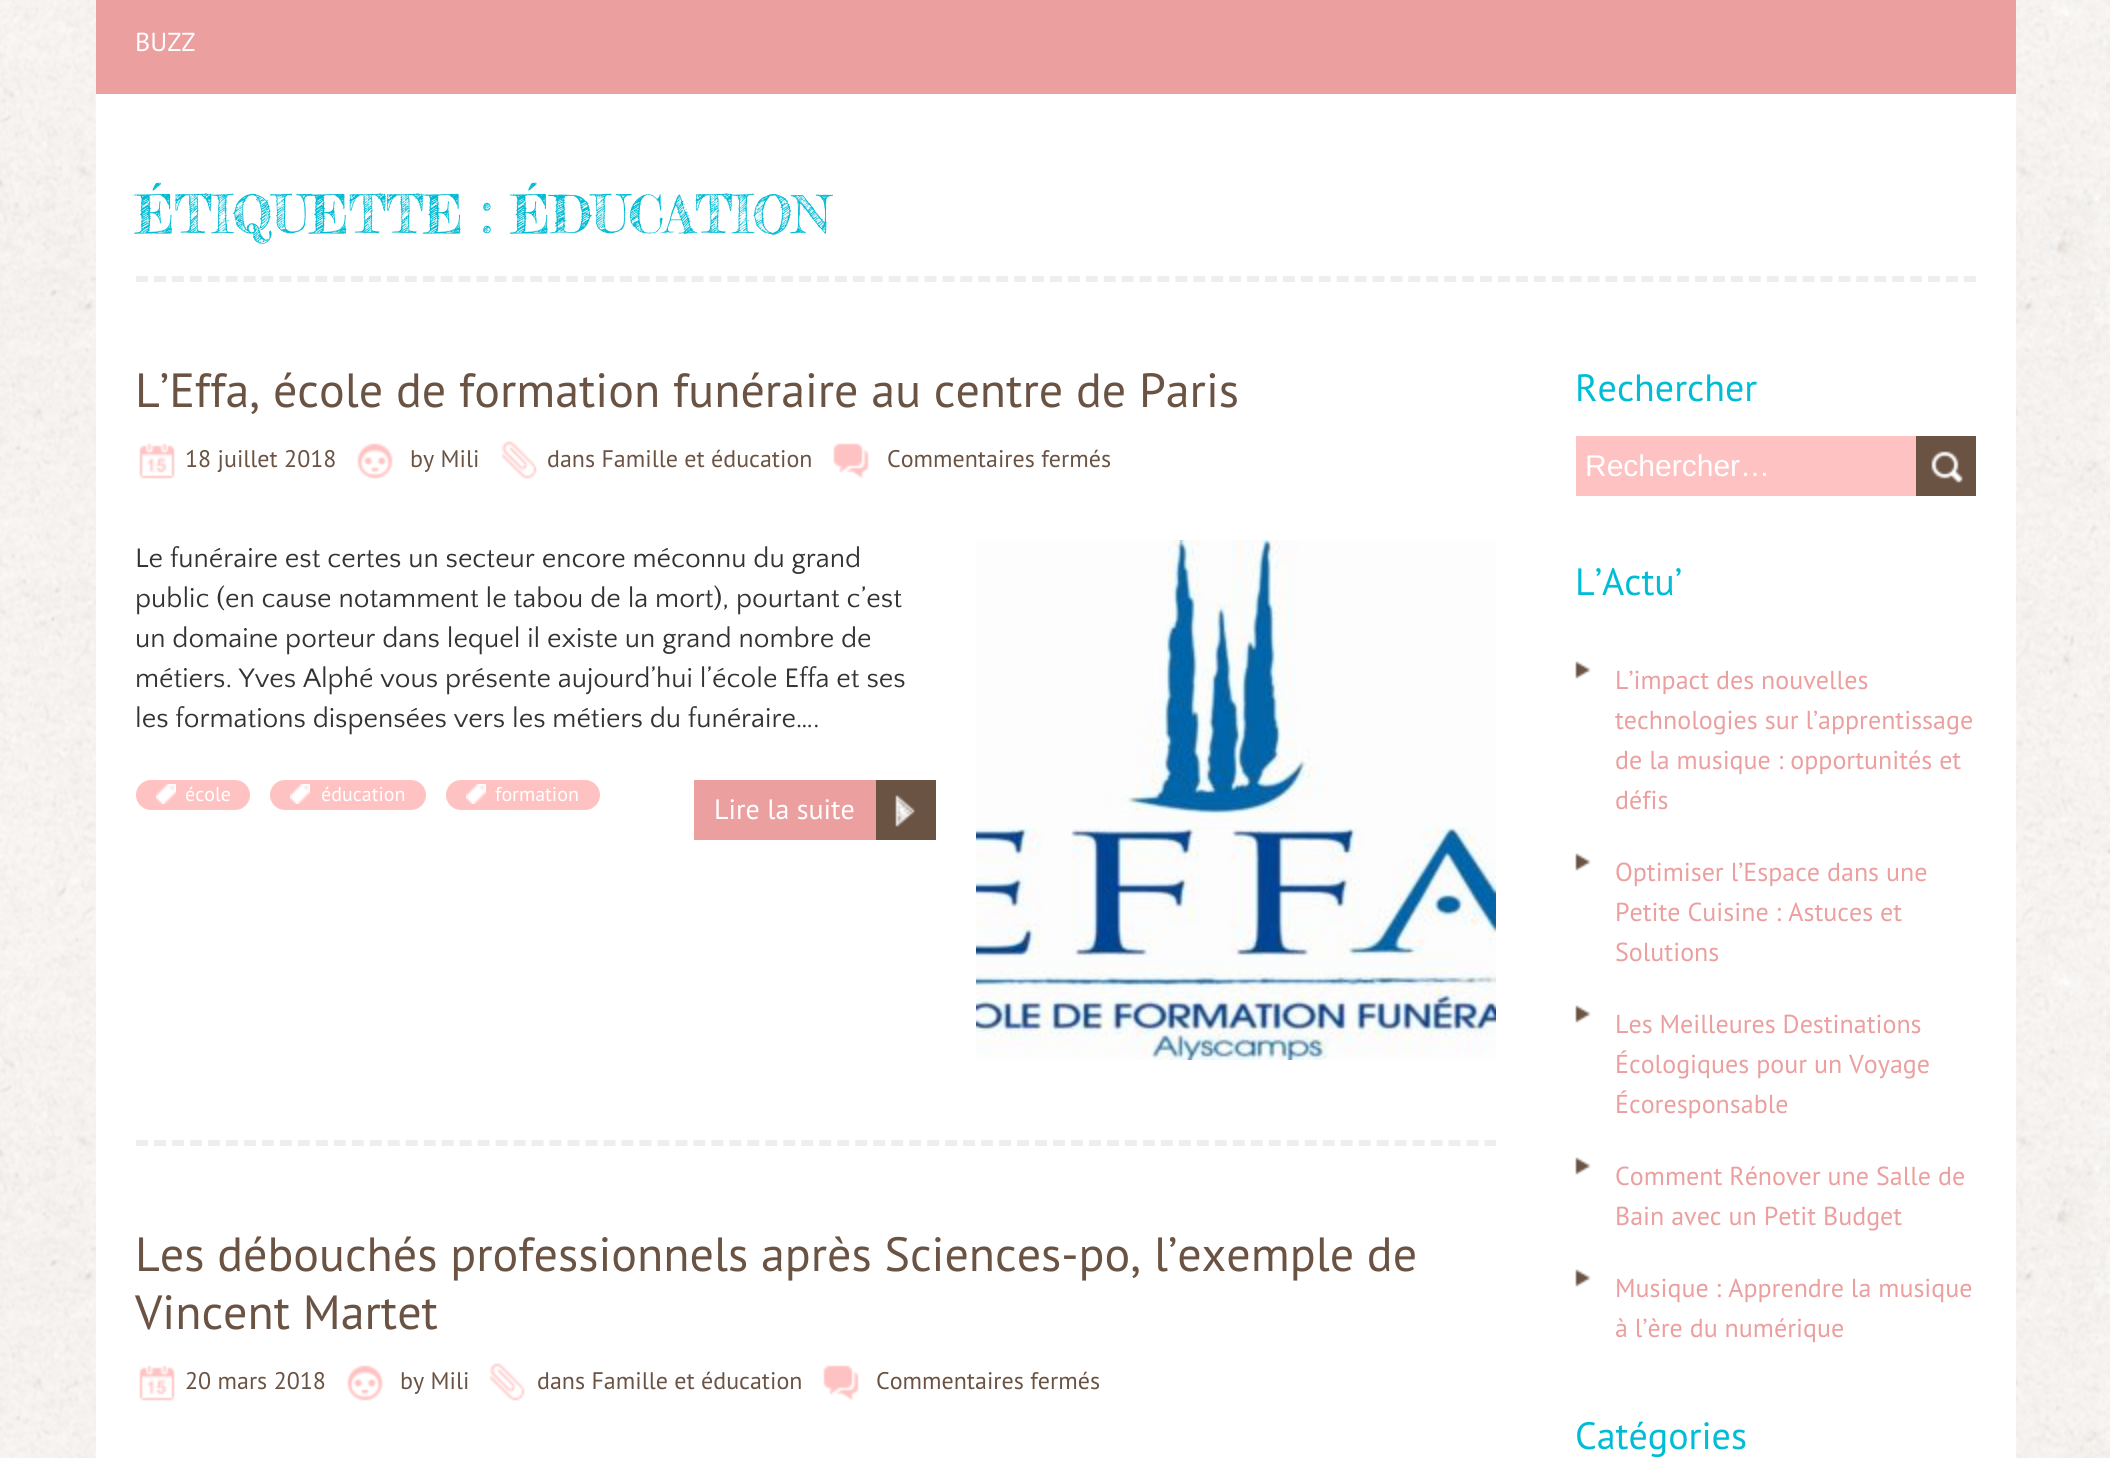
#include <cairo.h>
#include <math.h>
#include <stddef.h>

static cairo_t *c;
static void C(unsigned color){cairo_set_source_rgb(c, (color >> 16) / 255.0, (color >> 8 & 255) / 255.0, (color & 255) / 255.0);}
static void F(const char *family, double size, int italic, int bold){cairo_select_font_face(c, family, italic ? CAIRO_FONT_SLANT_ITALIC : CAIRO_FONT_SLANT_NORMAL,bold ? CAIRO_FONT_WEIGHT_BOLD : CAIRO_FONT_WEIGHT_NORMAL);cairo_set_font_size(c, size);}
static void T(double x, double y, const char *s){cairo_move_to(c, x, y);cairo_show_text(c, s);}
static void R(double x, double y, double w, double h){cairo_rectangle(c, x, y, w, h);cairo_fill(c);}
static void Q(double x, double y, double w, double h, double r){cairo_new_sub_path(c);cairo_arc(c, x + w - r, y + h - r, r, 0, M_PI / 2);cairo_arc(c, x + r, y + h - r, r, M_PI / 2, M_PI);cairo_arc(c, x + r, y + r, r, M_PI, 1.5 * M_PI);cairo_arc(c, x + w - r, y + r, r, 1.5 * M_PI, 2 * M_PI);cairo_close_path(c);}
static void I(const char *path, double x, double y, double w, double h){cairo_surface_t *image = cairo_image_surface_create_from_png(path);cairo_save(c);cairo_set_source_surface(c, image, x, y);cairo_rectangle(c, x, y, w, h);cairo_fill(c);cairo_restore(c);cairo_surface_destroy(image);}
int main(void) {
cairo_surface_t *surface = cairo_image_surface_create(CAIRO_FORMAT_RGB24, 2110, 1458);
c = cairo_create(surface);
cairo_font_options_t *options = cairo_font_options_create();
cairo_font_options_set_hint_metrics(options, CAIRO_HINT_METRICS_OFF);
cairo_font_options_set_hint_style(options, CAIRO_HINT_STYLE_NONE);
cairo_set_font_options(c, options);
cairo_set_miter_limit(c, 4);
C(0xffffff);
cairo_paint(c);
I("1.png",0,0,2110,1458);
C(0xffffff);
R(96,94,1920,1364);
C(0xeb9f9f);
R(96,0,1920,94);
F("PT Sans",26,0,0);
C(0xffffff);
T(135,51,"BUZZ");
cairo_new_path(c);
cairo_move_to(c,136,279);
cairo_line_to(c,1976,279);
C(0xeeeeee);
cairo_set_line_width(c,6);
cairo_set_dash(c,(double[]){12,5.92},2,0);
cairo_stroke(c);
F("Fredericka the Great",52,0,0);
C(0x00bcd4);
T(135,233,"ÉTIQUETTE : ÉDUCATION");
F("PT Sans",48,0,0);
C(0x6b5344);
T(135,407,"L’Effa, école de formation funéraire au centre de Paris");
C(0xffc2c2);
R(139,443,36,36);
I("2.png",136,440,40,40);
F("PT Sans",24,0,0);
C(0x6b5344);
T(185,467,"18 juillet 2018");
C(0xffc2c2);
R(357,443,36,36);
I("3.png",354,440,40,40);
C(0x6b5344);
T(410,467,"by Mili");
C(0xffc2c2);
R(501,441,36,38);
I("4.png",498,440,40,40);
C(0x6b5344);
T(547,467,"dans Famille et éducation");
C(0xffc2c2);
R(833,443,36,36);
I("5.png",830,440,40,40);
C(0x6b5344);
T(887,467,"Commentaires fermés");
F("Quattrocento Sans",28,0,0);
C(0x333333);
T(135,567,"Le funéraire est certes un secteur encore méconnu du grand");
T(135,607,"public (en cause notamment le tabou de la mort), pourtant c’est");
T(135,647,"un domaine porteur dans lequel il existe un grand nombre de");
T(135,687,"métiers. Yves Alphé vous présente aujourd’hui l’école Effa et ses");
T(135,727,"les formations dispensées vers les métiers du funéraire….");
C(0x6b5344);
R(876,780,60,60);
I("6.png",895,795,20,32);
C(0xeb9f9f);
R(694,780,182,60);
F("PT Sans",28,0,0);
C(0xffffff);
T(714,819,"Lire la suite");
I("7.png",976,540,520,520);
C(0xffc2c2);
Q(136,780,114,30,15);
cairo_fill(c);
I("8.png",156,784,20,20);
F("PT Sans",20,0,0);
C(0xffffff);
T(185,801,"école");
C(0xffc2c2);
Q(270,780,156,30,15);
cairo_fill(c);
I("8.png",290,784,20,20);
C(0xffffff);
T(321,801,"éducation");
C(0xffc2c2);
Q(446,780,154,30,15);
cairo_fill(c);
I("8.png",466,784,20,20);
C(0xffffff);
T(495,801,"formation");
cairo_new_path(c);
cairo_move_to(c,136,1143);
cairo_line_to(c,1496,1143);
C(0xeeeeee);
cairo_set_dash(c,(double[]){12,5.98},2,0);
cairo_stroke(c);
F("PT Sans",48,0,0);
C(0x6b5344);
T(135,1271,"Les débouchés professionnels après Sciences-po, l’exemple de");
T(135,1329,"Vincent Martet");
C(0xffc2c2);
R(139,1365,36,36);
I("2.png",136,1362,40,40);
F("PT Sans",24,0,0);
C(0x6b5344);
T(185,1389,"20 mars 2018");
C(0xffc2c2);
R(347,1365,36,36);
I("3.png",344,1362,40,40);
C(0x6b5344);
T(400,1389,"by Mili");
C(0xffc2c2);
R(489,1363,36,38);
I("4.png",486,1362,40,40);
C(0x6b5344);
T(537,1389,"dans Famille et éducation");
C(0xffc2c2);
R(823,1365,36,36);
I("5.png",820,1362,40,40);
C(0x6b5344);
T(876,1389,"Commentaires fermés");
F("PT Sans",38,0,0);
C(0x00bcd4);
T(1575,401,"Rechercher");
C(0xffc2c2);
R(1576,436,340,60);
F("Liberation Sans",30,0,0);
C(0xffffff);
T(1585,476,"Rechercher…");
C(0x6b5344);
R(1916,436,60,60);
I("9.png",1931,451,32,32);
F("PT Sans",38,0,0);
C(0x00bcd4);
T(1575,595,"L’Actu’");
I("10.png",1575,661,16,18);
F("PT Sans",26,0,0);
C(0xeb9f9f);
T(1615,689,"L’impact des nouvelles");
T(1615,729,"technologies sur l’apprentissage");
T(1615,769,"de la musique : opportunités et");
T(1615,809,"défis");
I("10.png",1575,853,16,18);
T(1615,881,"Optimiser l’Espace dans une");
T(1615,921,"Petite Cuisine : Astuces et");
T(1615,961,"Solutions");
I("10.png",1575,1005,16,18);
T(1615,1033,"Les Meilleures Destinations");
T(1615,1073,"Écologiques pour un Voyage");
T(1615,1113,"Écoresponsable");
I("10.png",1575,1157,16,18);
T(1615,1185,"Comment Rénover une Salle de");
T(1615,1225,"Bain avec un Petit Budget");
I("10.png",1575,1269,16,18);
T(1615,1297,"Musique : Apprendre la musique");
T(1615,1337,"à l’ère du numérique");
F("PT Sans",38,0,0);
C(0x00bcd4);
T(1575,1449,"Catégories");
cairo_surface_write_to_png(surface, "o.png");
cairo_font_options_destroy(options);
cairo_destroy(c);
cairo_surface_destroy(surface);
return 0;
}
